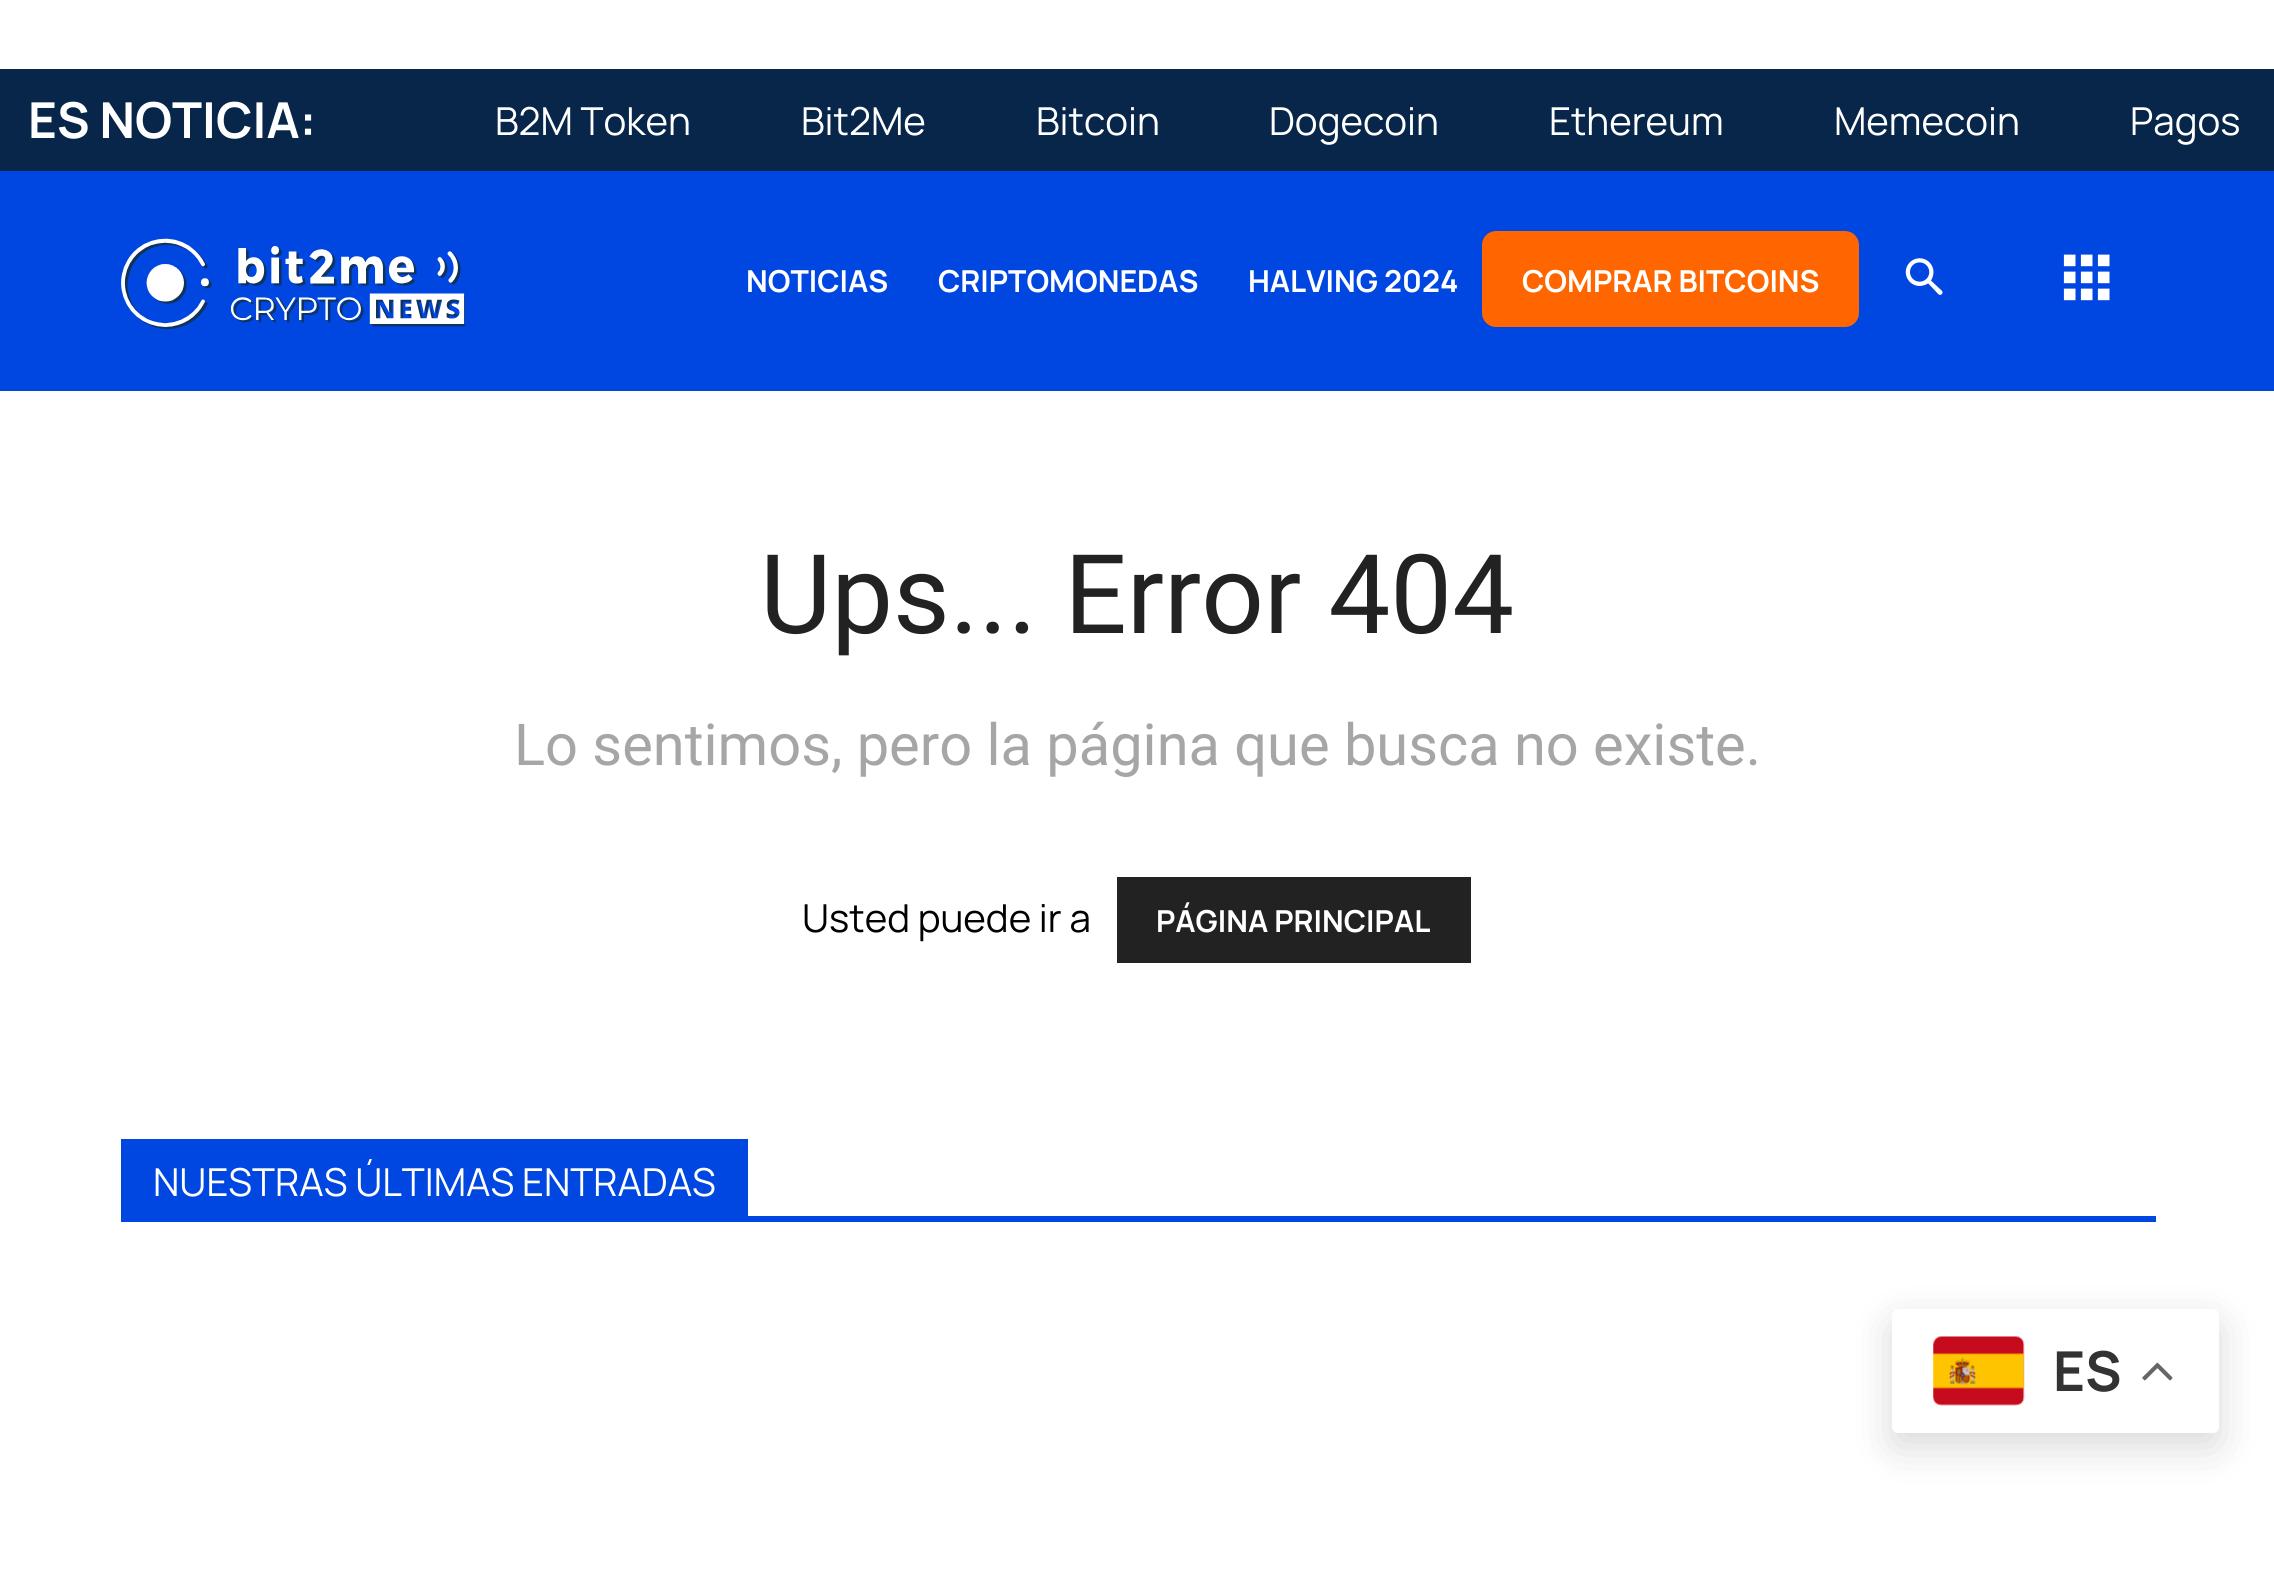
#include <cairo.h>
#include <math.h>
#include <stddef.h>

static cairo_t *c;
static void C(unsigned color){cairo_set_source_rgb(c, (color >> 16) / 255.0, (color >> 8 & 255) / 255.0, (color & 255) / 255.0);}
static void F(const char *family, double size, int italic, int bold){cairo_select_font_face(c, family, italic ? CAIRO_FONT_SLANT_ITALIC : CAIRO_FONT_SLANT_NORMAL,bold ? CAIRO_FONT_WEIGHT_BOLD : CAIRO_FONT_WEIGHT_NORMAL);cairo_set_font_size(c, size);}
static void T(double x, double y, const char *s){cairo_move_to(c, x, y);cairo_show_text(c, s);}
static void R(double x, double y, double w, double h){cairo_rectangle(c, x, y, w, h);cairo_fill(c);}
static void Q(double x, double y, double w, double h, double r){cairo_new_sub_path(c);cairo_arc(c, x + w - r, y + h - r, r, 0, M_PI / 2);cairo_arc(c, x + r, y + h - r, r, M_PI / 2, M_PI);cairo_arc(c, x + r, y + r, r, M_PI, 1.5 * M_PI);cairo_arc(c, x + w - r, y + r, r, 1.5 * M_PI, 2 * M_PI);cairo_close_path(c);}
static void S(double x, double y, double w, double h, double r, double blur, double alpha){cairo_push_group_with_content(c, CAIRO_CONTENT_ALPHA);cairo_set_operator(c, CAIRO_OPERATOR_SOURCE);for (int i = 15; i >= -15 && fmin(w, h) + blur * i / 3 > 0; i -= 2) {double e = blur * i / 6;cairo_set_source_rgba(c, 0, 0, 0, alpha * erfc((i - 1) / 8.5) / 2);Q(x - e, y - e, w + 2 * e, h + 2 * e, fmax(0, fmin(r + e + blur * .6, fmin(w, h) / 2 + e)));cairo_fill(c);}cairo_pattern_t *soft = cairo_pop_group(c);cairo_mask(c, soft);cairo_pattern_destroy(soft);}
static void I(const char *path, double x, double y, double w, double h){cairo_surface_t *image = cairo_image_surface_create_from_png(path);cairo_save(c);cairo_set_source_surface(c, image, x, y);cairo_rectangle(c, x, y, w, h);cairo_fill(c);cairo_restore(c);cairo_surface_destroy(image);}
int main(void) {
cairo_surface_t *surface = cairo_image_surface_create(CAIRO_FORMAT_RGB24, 2274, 1584);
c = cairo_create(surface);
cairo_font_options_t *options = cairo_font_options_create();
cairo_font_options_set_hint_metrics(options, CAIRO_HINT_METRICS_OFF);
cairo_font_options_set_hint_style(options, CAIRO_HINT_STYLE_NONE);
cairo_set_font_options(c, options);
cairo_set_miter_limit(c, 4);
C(0xffffff);
cairo_paint(c);
C(0x07264a);
R(0,69,2274,102);
F("Manrope",49.5,0,1);
C(0xffffff);
T(28,138,"ES NOTICIA:");
F("Manrope",38.5,0,0);
T(495,135,"B2M Token");
T(801,135,"Bit2Me");
T(1036,135,"Bitcoin");
T(1269,135,"Dogecoin");
T(1549,135,"Ethereum");
T(1834,135,"Memecoin");
T(2130,135,"Pagos");
C(0x0046e1);
R(0,171,2274,220);
I("1.png",121,238,344,91);
F("Manrope",30.25,0,1);
C(0xffffff);
T(746,292,"NOTICIAS");
T(938,292,"CRIPTOMONEDAS");
T(1248,292,"HALVING 2024");
C(0xff6600);
Q(1482,231,377,96,14);
cairo_fill(c);
C(0xffffff);
T(1522,292,"COMPRAR BITCOINS");
I("2.png",1905,258,38,37);
I("3.png",2063,254,47,47);
F("Roboto",110,0,0);
C(0x222222);
T(760,633,"Ups... Error 404");
F("Roboto",57.75,0,0);
C(0xa6a6a6);
T(514,765,"Lo sentimos, pero la página que busca no existe.");
F("Manrope",38.5,0,0);
C(0x000000);
T(802,932,"Usted puede ir a");
C(0x222222);
R(1117,877,354,86);
F("Manrope",30.25,0,1);
C(0xffffff);
T(1156,932,"PÁGINA PRINCIPAL");
C(0x0046e1);
R(121,1216,2035,6);
R(121,1139,627,77);
F("Manrope",38.5,0,0);
C(0xffffff);
T(153,1196,"NUESTRAS ÚLTIMAS ENTRADAS");
C(0x000000);
S(1892,1323,327,124,6,20.5,.15);
C(0xffffff);
Q(1892,1309,327,124,6);
cairo_fill(c);
I("4.png",1933,1336,92,70);
F("Manrope",55,0,1);
C(0x333333);
T(2053,1391,"ES");
I("5.png",2142,1362,31,19);
cairo_surface_write_to_png(surface, "o.png");
cairo_font_options_destroy(options);
cairo_destroy(c);
cairo_surface_destroy(surface);
return 0;
}
